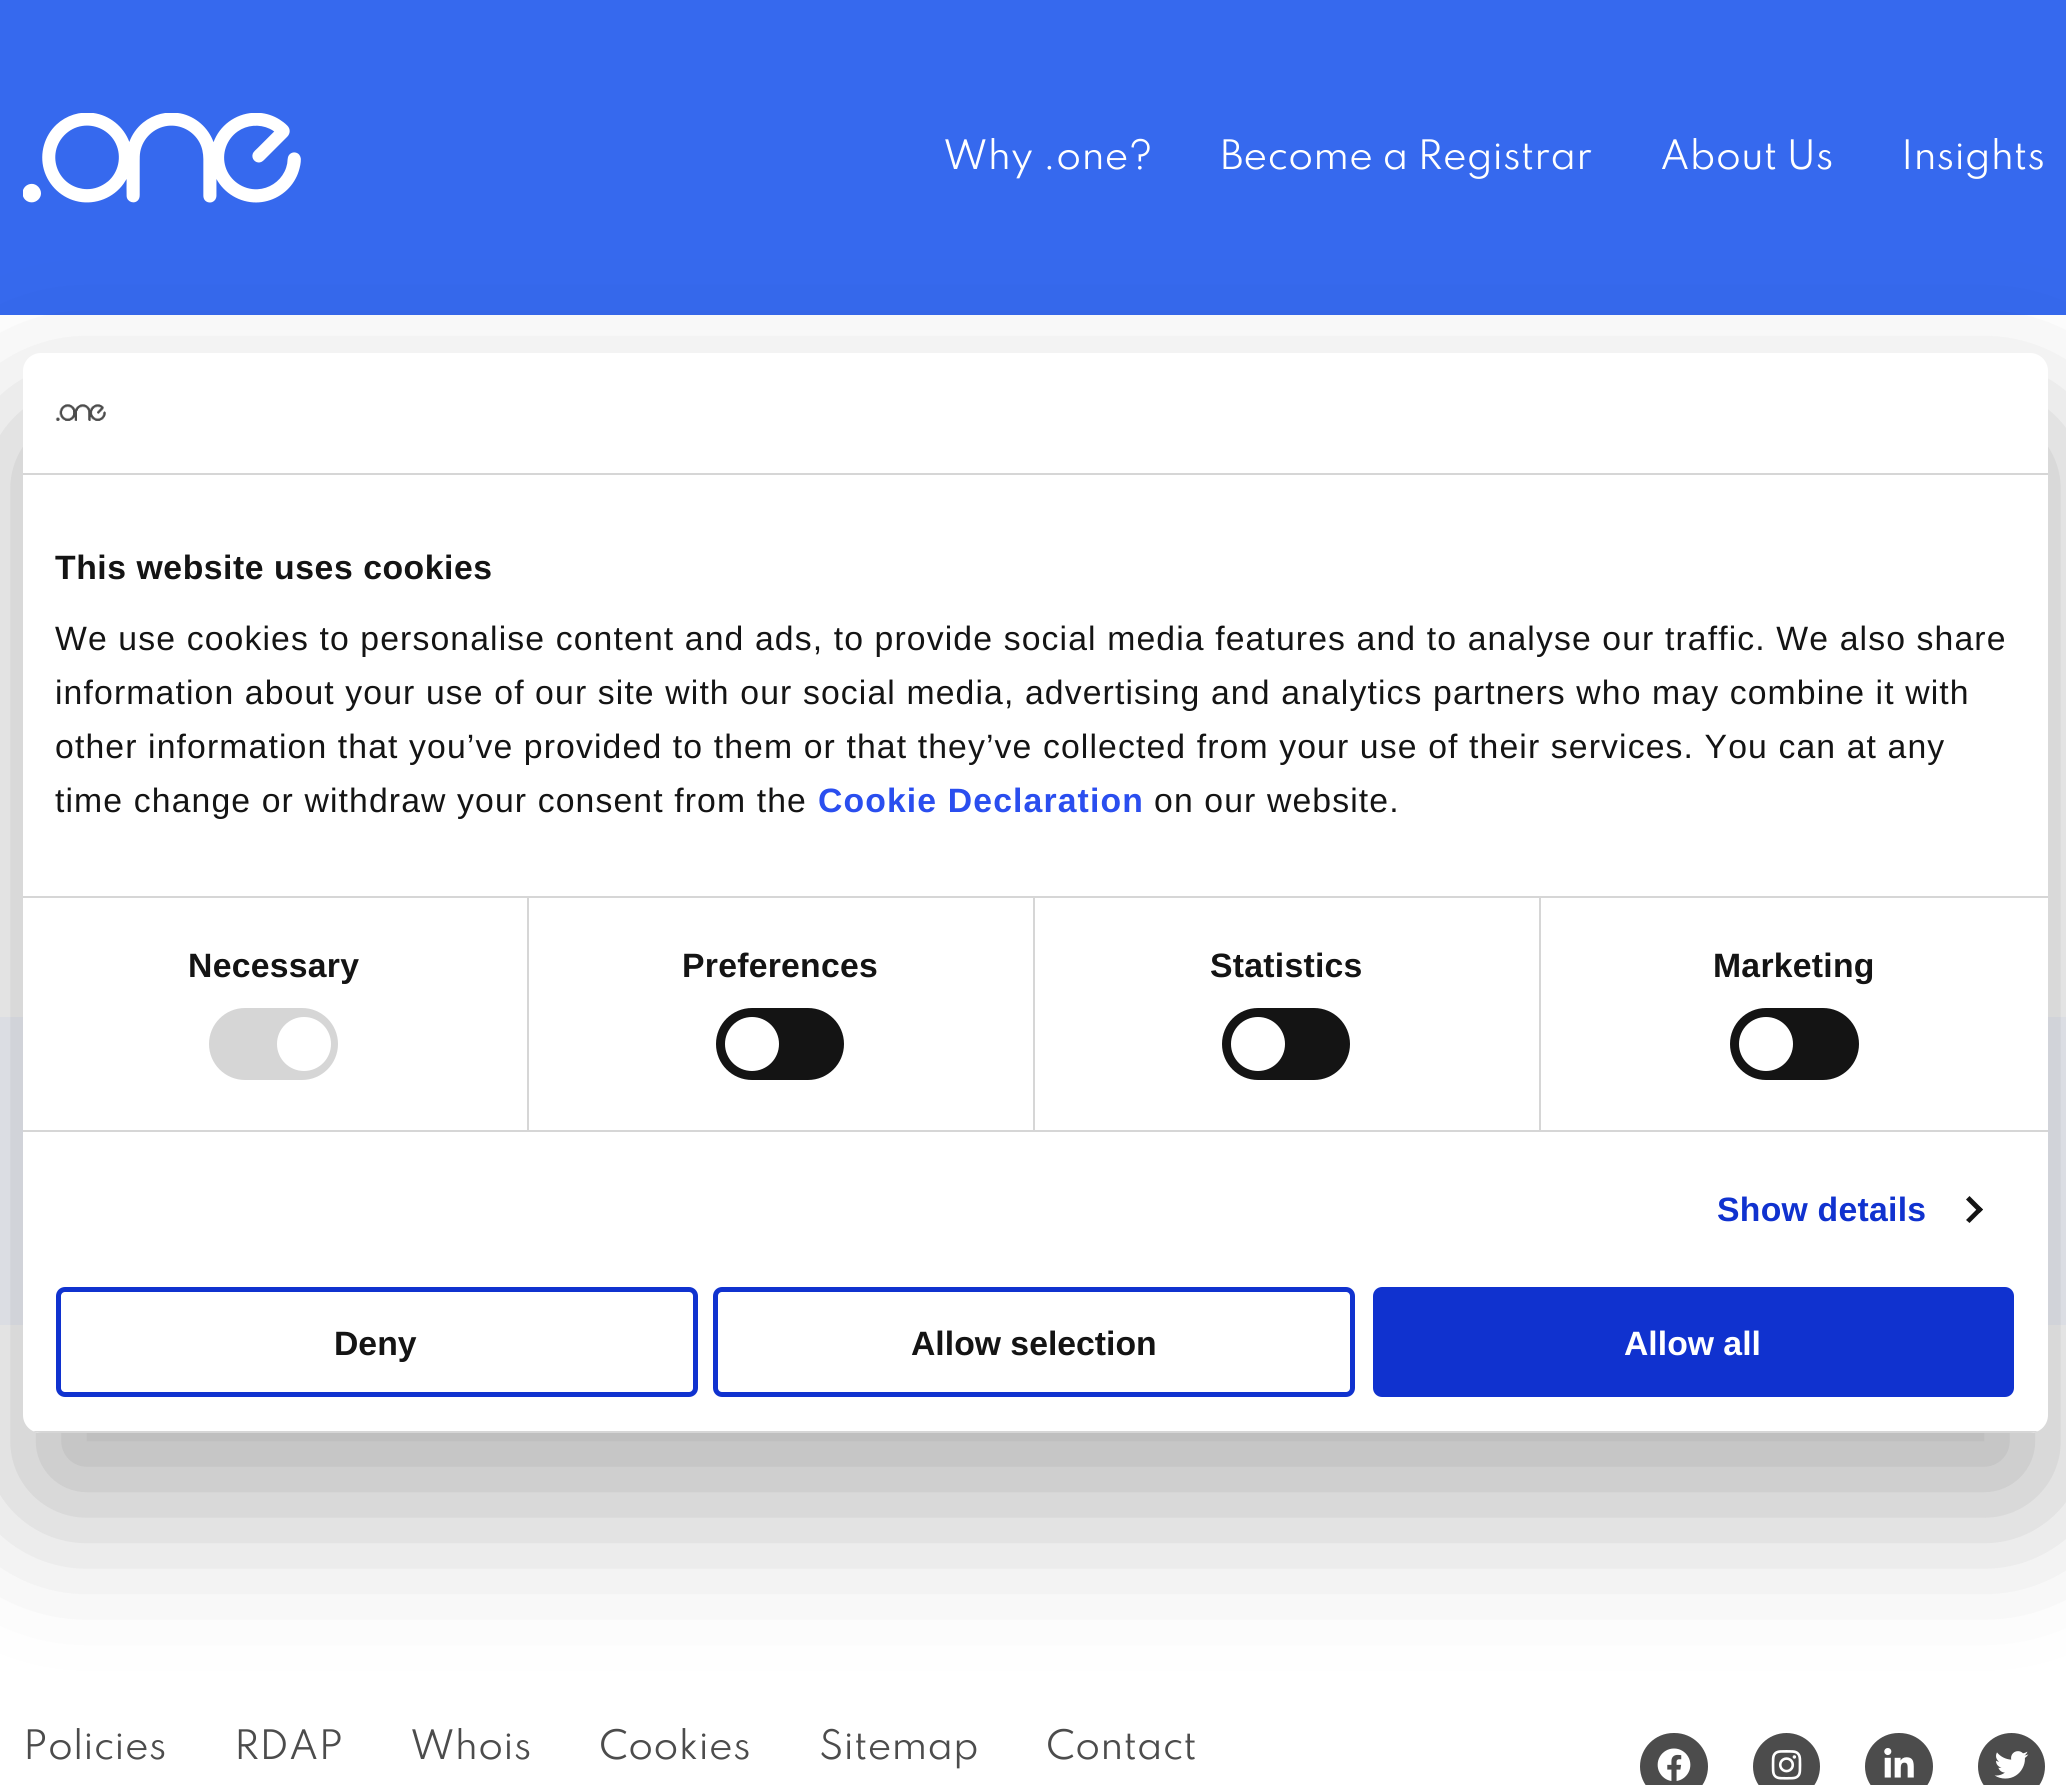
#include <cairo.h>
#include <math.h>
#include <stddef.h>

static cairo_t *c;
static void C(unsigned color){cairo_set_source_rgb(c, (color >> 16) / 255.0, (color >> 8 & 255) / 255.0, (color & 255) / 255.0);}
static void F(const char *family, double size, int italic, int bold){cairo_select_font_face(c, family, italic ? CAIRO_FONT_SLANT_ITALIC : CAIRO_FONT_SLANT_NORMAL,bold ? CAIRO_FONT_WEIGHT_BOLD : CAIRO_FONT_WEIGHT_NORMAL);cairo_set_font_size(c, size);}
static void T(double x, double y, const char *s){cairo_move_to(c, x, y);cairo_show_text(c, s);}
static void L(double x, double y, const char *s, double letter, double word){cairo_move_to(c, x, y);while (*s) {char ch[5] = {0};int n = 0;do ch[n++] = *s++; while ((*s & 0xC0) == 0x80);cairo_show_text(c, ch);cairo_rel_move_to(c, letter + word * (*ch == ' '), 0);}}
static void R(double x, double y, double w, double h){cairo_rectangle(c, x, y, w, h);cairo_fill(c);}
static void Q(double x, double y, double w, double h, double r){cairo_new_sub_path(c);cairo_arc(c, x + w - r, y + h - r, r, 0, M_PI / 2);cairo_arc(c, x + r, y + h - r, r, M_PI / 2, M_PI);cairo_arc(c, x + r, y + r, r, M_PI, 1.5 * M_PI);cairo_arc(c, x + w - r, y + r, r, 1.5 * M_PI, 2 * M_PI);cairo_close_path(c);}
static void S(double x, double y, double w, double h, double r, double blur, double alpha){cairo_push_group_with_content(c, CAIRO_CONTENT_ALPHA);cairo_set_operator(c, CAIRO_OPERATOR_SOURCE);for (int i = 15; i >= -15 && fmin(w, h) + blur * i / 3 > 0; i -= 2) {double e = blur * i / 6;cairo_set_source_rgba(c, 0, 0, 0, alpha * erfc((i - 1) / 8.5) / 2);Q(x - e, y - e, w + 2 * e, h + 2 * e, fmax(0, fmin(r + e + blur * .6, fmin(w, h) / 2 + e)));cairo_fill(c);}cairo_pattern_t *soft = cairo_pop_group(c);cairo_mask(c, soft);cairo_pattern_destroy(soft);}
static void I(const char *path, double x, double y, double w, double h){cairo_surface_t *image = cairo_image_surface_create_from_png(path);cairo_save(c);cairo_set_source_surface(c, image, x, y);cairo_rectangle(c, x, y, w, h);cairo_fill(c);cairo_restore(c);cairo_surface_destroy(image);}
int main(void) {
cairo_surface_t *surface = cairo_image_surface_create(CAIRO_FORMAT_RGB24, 2066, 1785);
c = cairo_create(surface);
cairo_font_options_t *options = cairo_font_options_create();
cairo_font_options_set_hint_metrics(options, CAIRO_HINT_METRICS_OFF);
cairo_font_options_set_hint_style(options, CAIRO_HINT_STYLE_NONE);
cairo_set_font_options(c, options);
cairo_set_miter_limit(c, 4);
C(0xffffff);
cairo_paint(c);
C(0x3669ee);
R(0,0,2066,315);
I("1.png",23,113,278,90);
F("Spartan",36,0,0);
C(0xffffff);
T(943,169,"Why .one?");
T(1220,169,"Become a Registrar");
T(1660,169,"About Us");
T(1901,169,"Insights");
C(0xf6f8ff);
R(0,1017,2066,308);
C(0x4c4c4c);
Q(1640,1733,68,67,33.5);
cairo_fill(c);
cairo_arc(c,1786.5,1766.5,33.5,0,2 * M_PI);
cairo_fill(c);
Q(1865,1733,68,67,33.5);
cairo_fill(c);
cairo_arc(c,2011.5,1766.5,33.5,0,2 * M_PI);
cairo_fill(c);
C(0x000000);
S(23,425,2025,1080,18,76.5,.3);
C(0xffffff);
Q(23,353,2025,1080,18);
cairo_fill(c);
C(0xd6d6d6);
R(23,473,2025,2);
I("2.png",55,404,51,17);
R(23,896,2025,2);
F("Liberation Sans",33.75,0,1);
C(0x141414);
L(55,579,"This website uses cookies",.55,0);
F("Liberation Sans",33.75,0,0);
L(55,650,"We use cookies to personalise content and ads, to provide social media features and to analyse our traffic. We also share",1.12,0);
L(55,704,"information about your use of our site with our social media, advertising and analytics partners who may combine it with",1.12,0);
L(55,758,"other information that you’ve provided to them or that they’ve collected from your use of their services. You can at any",1.12,0);
L(55,812,"time change or withdraw your consent from the",1.12,0);
F("Liberation Sans",33.75,0,1);
C(0x2a4eef);
L(818,812,"Cookie Declaration",1.12,0);
F("Liberation Sans",33.75,0,0);
C(0x141414);
L(1154,812,"on our website.",1.12,0);
C(0xd6d6d6);
R(23,1130,2025,2);
R(527,898,2,232);
F("Liberation Sans",33.75,0,1);
C(0x141414);
L(188,977,"Necessary",.25,0);
C(0xd6d6d6);
Q(209,1008,129,72,36);
cairo_fill(c);
C(0xffffff);
cairo_arc(c,304,1044,27,0,2 * M_PI);
cairo_fill(c);
C(0xd6d6d6);
R(1033,898,2,232);
C(0x141414);
L(682,977,"Preferences",.25,0);
Q(716,1008,128,72,36);
cairo_fill(c);
C(0xffffff);
cairo_arc(c,752,1044,27,0,2 * M_PI);
cairo_fill(c);
C(0xd6d6d6);
R(1539,898,2,232);
C(0x141414);
L(1210,977,"Statistics",.25,0);
Q(1222,1008,128,72,36);
cairo_fill(c);
C(0xffffff);
cairo_arc(c,1258,1044,27,0,2 * M_PI);
cairo_fill(c);
C(0x141414);
L(1713,977,"Marketing",.25,0);
Q(1730,1008,129,72,36);
cairo_fill(c);
C(0xffffff);
cairo_arc(c,1766,1044,27,0,2 * M_PI);
cairo_fill(c);
C(0x1032cf);
L(1717,1221,"Show details",.25,0);
C(0x141414);
cairo_new_path(c);
cairo_move_to(c,1969.5,1196);
cairo_line_to(c,1983,1209.5);
cairo_line_to(c,1979.5,1213);
cairo_line_to(c,1966,1199.5);
cairo_close_path(c);
cairo_fill(c);
cairo_new_path(c);
cairo_move_to(c,1979.5,1206.5);
cairo_line_to(c,1983,1209.5);
cairo_line_to(c,1969.5,1223);
cairo_line_to(c,1966,1220);
cairo_close_path(c);
cairo_fill(c);
cairo_save(c);
Q(23,353,2025,1080,18);
cairo_clip(c);
C(0xd6d6d6);
R(33,1431,2005,2);
cairo_restore(c);
Q(58.5,1289.5,637,105,6.5);
C(0x1032cf);
cairo_set_line_width(c,5);
cairo_stroke(c);
C(0x141414);
T(334,1355,"Deny");
Q(715.5,1289.5,637,105,6.5);
C(0x1032cf);
cairo_stroke(c);
C(0x141414);
T(911,1355,"Allow selection");
C(0x1032cf);
Q(1375.5,1289.5,636,105,6.5);
cairo_fill_preserve(c);
cairo_stroke(c);
C(0xffffff);
T(1624,1355,"Allow all");
F("Spartan",36,0,0);
C(0x4c4c4c);
T(23,1759,"Policies");
T(234,1759,"RDAP");
T(410,1759,"Whois");
T(599,1759,"Cookies");
T(819,1759,"Sitemap");
T(1046,1759,"Contact");
I("3.png",1657,1748,34,33);
I("4.png",1771,1750,31,30);
I("5.png",1884,1748,30,30);
I("6.png",1994,1751,35,28);
cairo_surface_write_to_png(surface, "o.png");
cairo_font_options_destroy(options);
cairo_destroy(c);
cairo_surface_destroy(surface);
return 0;
}
